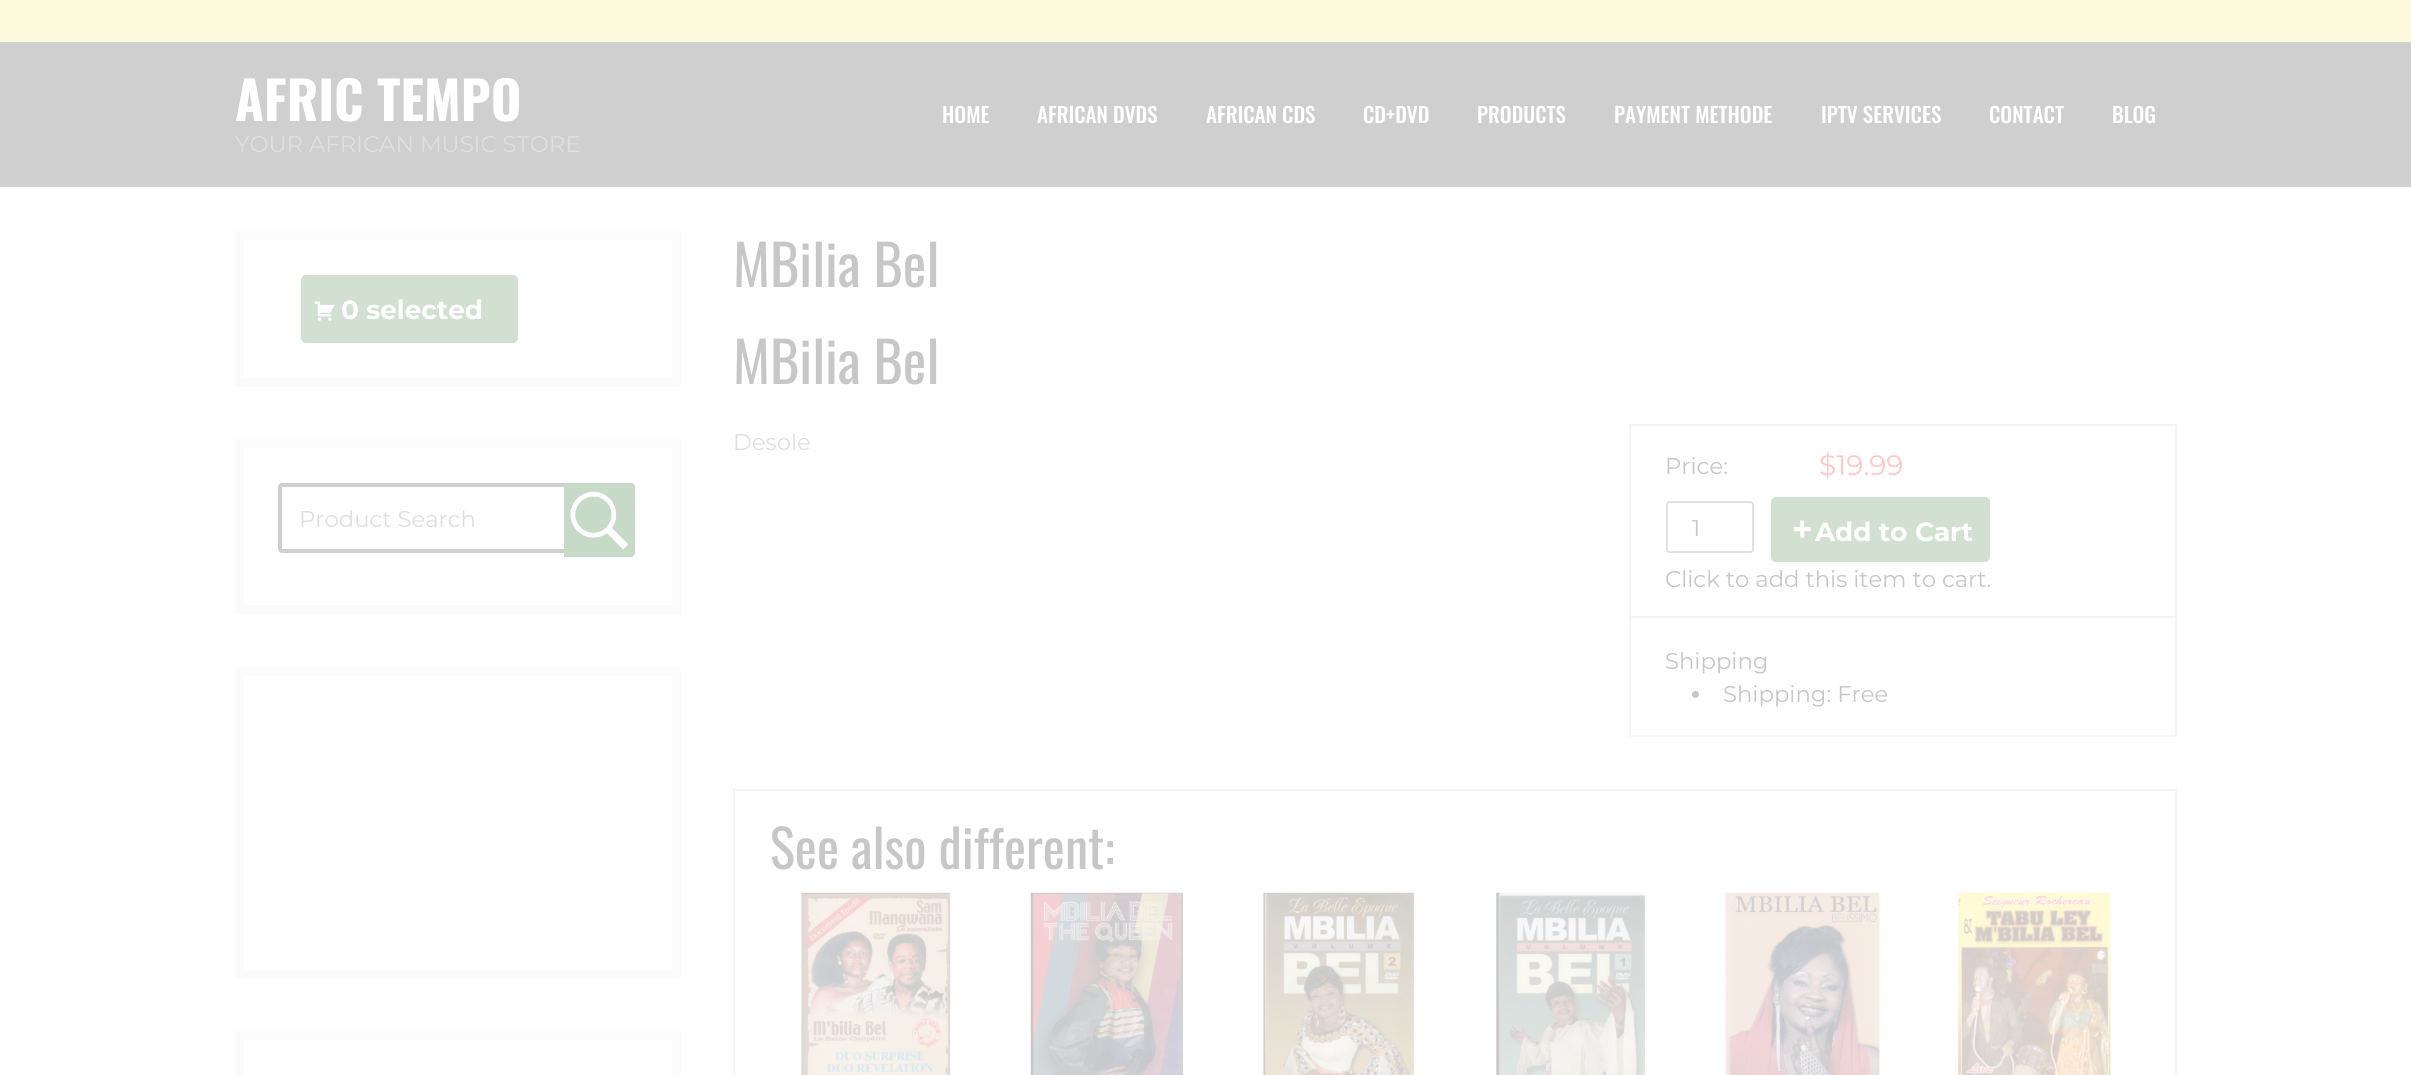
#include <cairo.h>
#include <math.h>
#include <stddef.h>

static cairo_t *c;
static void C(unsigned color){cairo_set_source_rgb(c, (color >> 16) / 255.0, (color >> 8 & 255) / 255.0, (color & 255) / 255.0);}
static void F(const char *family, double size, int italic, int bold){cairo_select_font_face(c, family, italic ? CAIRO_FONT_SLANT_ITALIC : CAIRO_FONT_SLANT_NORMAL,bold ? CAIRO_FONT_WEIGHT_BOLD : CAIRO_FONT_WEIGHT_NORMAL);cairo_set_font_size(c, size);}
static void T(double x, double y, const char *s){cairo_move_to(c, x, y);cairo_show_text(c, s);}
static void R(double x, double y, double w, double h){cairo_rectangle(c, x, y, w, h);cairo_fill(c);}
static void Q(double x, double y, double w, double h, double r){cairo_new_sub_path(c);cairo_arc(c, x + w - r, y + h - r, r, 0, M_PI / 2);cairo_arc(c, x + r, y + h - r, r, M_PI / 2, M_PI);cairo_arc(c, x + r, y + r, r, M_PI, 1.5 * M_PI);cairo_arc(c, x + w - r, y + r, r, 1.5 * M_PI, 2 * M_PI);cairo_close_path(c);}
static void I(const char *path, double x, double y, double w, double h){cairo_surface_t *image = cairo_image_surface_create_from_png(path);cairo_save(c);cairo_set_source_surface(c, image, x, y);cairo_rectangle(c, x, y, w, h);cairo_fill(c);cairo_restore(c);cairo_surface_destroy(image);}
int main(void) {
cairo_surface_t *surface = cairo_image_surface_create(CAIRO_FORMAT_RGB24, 2411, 1075);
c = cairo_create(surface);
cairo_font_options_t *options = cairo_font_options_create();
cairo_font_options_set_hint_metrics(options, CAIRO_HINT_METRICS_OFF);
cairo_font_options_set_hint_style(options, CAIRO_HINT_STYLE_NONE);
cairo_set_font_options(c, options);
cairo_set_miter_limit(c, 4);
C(0xffffff);
cairo_paint(c);
C(0xfdf9dd);
R(0,0,2411,42);
C(0xcfcfcf);
R(0,42,2411,145);
F("Oswald",52.5,0,1);
C(0xffffff);
T(235,121,"AFRIC TEMPO");
F("Montserrat",22.75,0,0);
C(0xdfdfdf);
T(235,152,"YOUR AFRICAN MUSIC STORE");
F("Oswald Medium",21,0,0);
C(0xffffff);
T(942,123,"HOME");
T(1037,123,"AFRICAN DVDS");
T(1206,123,"AFRICAN CDS");
T(1363,123,"CD+DVD");
T(1477,123,"PRODUCTS");
T(1614,123,"PAYMENT METHODE");
T(1821,123,"IPTV SERVICES");
T(1989,123,"CONTACT");
T(2112,123,"BLOG");
cairo_rectangle(c,239.5,235.5,437,147);
C(0xfbfbfb);
cairo_set_line_width(c,9);
cairo_stroke(c);
C(0xd2e0d2);
Q(301,275,217,68,5);
cairo_fill(c);
I("1.png",314,301,21,20);
F("Montserrat",26.25,0,1);
C(0xffffff);
T(341,319,"0 selected");
cairo_rectangle(c,239.5,443.5,437,166);
C(0xfbfbfb);
cairo_stroke(c);
Q(280,485,353,66,2);
C(0xcfcfcf);
cairo_set_line_width(c,4);
cairo_stroke(c);
F("Montserrat",22.75,0,0);
C(0xdfdfdf);
T(299,527,"Product Search");
C(0xc7d9c7);
cairo_new_path(c);
cairo_move_to(c,564,483);
cairo_line_to(c,631,483);
cairo_curve_to(c,633,483,635,485,635,487);
cairo_line_to(c,635,553);
cairo_curve_to(c,635,555,633,557,631,557);
cairo_line_to(c,564,557);
cairo_close_path(c);
cairo_fill(c);
I("2.png",570,491,59,59);
cairo_rectangle(c,239.5,671.5,437,302);
C(0xfbfbfb);
cairo_set_line_width(c,9);
cairo_stroke(c);
cairo_rectangle(c,239.5,1035.5,437,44);
cairo_stroke(c);
F("Oswald",56,0,0);
C(0xc7c7c7);
T(733,287,"MBilia Bel");
T(733,384,"MBilia Bel");
F("Montserrat",22.75,0,0);
C(0xdfdfdf);
T(733,450,"Desole");
cairo_rectangle(c,1630,425,546,192);
C(0xf4f4f4);
cairo_set_line_width(c,2);
cairo_stroke(c);
C(0xc7c7c7);
T(1665,474,"Price:");
F("Montserrat",28,0,0);
C(0xffc7c7);
T(1819,475,"$19.99");
Q(1667,502,86,50,3);
C(0xe1e1e1);
cairo_stroke(c);
F("Montserrat",22.75,0,0);
C(0xc7c7c7);
T(1692,536,"1");
C(0xd2e0d2);
Q(1771,497,219,65,5);
cairo_fill(c);
I("3.png",1793,520,18,18);
F("Montserrat",26.25,0,1);
C(0xffffff);
T(1815,541,"Add to Cart");
F("Montserrat",22.75,0,0);
C(0xc7c7c7);
T(1665,587,"Click to add this item to cart.");
C(0xf4f4f4);
R(2175,618,2,119);
R(1629,735,548,2);
R(1629,618,2,119);
C(0xc7c7c7);
T(1665,669,"Shipping");
cairo_new_path(c);
cairo_arc(c,1695.5,694.5,3.5,0,2 * M_PI);
cairo_fill(c);
T(1723,702,"Shipping: Free");
cairo_rectangle(c,734,790,1442,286);
C(0xf4f4f4);
cairo_stroke(c);
F("Oswald",52.5,0,0);
C(0xc7c7c7);
T(770,869,"See also different:");
I("4.png",801,892,150,183);
I("5.png",1030,892,153,183);
I("6.png",1263,892,151,183);
I("7.png",1496,892,149,183);
I("8.png",1725,892,155,183);
I("9.png",1958,892,153,183);
cairo_surface_write_to_png(surface, "o.png");
cairo_font_options_destroy(options);
cairo_destroy(c);
cairo_surface_destroy(surface);
return 0;
}
